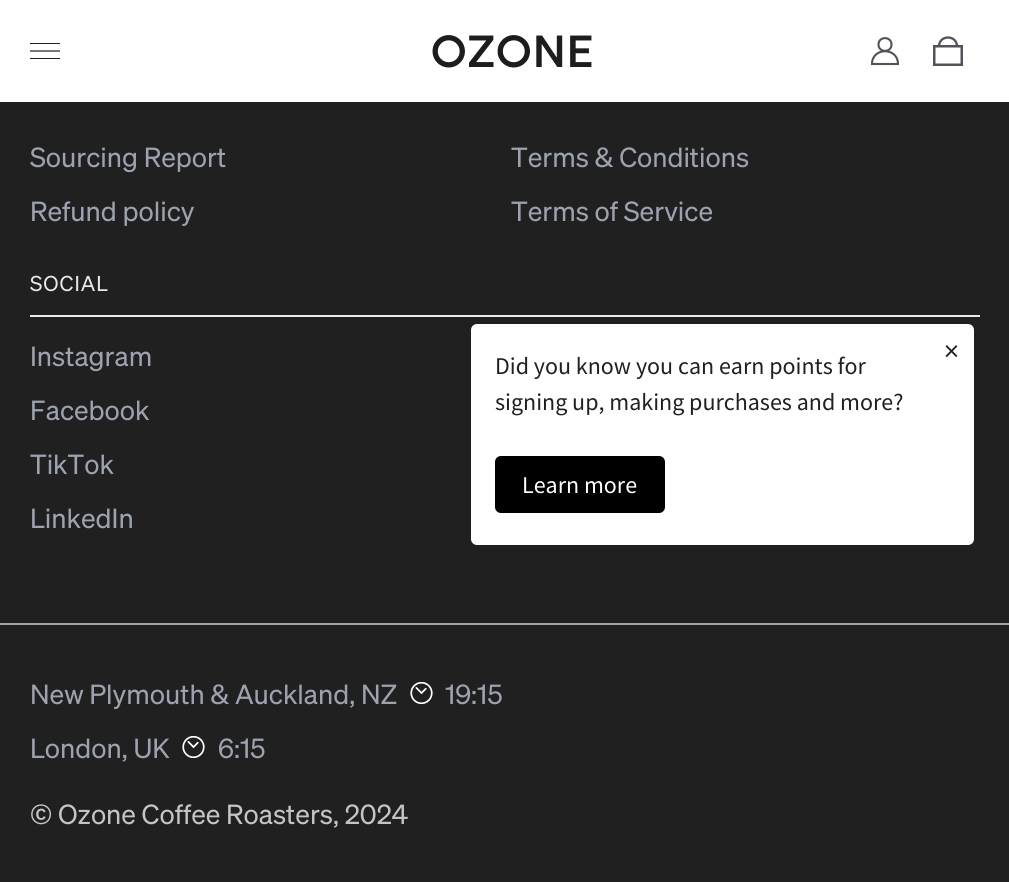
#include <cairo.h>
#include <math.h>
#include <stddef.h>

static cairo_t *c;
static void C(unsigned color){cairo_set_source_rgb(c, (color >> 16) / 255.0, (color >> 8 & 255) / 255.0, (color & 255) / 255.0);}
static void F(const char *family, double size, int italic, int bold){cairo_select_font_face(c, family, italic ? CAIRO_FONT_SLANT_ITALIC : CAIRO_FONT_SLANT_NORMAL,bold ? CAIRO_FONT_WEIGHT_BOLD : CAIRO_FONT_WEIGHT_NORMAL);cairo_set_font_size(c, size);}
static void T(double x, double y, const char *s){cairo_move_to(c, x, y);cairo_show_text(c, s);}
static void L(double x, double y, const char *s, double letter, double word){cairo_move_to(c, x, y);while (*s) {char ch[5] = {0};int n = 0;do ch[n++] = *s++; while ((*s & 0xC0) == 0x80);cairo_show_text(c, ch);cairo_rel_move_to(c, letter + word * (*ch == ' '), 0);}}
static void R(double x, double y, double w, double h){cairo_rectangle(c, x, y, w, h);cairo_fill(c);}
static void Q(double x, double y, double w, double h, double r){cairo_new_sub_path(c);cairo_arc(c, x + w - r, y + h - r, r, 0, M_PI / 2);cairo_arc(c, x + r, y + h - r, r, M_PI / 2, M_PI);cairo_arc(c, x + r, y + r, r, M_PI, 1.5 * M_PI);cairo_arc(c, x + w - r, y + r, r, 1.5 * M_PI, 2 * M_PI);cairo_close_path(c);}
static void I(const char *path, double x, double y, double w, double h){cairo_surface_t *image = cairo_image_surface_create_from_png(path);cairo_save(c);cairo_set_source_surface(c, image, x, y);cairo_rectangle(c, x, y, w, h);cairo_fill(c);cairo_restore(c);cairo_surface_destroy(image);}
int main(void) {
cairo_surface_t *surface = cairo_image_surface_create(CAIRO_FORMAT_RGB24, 1009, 882);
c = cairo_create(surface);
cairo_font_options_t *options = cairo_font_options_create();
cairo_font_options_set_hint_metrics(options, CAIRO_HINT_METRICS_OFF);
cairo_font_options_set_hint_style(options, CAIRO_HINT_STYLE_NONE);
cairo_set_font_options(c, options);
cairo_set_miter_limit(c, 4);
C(0x202020);
cairo_paint(c);
C(0xffffff);
R(0,0,1009,102);
C(0x202020);
R(30,43,30,1);
cairo_new_path(c);
cairo_move_to(c,30,51);
cairo_line_to(c,60,51);
cairo_set_line_width(c,1.2);
cairo_stroke(c);
R(30,58,30,1);
I("1.png",432,35,160,33);
cairo_new_path(c);
cairo_move_to(c,872,64);
cairo_curve_to(c,872,47,898,47,898,64);
cairo_close_path(c);
cairo_move_to(c,878.5,44.5);
cairo_curve_to(c,878.5,36,891.5,36,891.5,44.5);
cairo_curve_to(c,891.5,53,878.5,53,878.5,44.5);
cairo_close_path(c);
C(0x50535a);
cairo_set_line_width(c,2.1);
cairo_set_line_cap(c,CAIRO_LINE_CAP_SQUARE);
cairo_stroke(c);
cairo_rectangle(c,934.25,46.25,27.5,18.5);
cairo_set_line_width(c,2.5);
cairo_set_line_cap(c,CAIRO_LINE_CAP_BUTT);
cairo_stroke(c);
cairo_new_path(c);
cairo_move_to(c,939,46.5);
cairo_curve_to(c,939,34.5,957,34.5,957,46.5);
cairo_set_line_width(c,2.3);
cairo_stroke(c);
C(0x9ca3af);
R(0,623,1009,2);
F("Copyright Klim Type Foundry",27,0,0);
T(30,167,"Sourcing Report");
T(511,167,"Terms & Conditions");
T(30,221,"Refund policy");
T(511,221,"Terms of Service");
F("Copyright Klim Type Foundry",21,0,0);
C(0xe5e7eb);
L(30,291,"SOCIAL",1,0);
C(0xebebeb);
R(30,315,950,2);
F("Copyright Klim Type Foundry",27,0,0);
C(0x9ca3af);
T(30,366,"Instagram");
T(30,420,"Facebook");
T(30,474,"TikTok");
T(30,528,"LinkedIn");
T(30,704,"New Plymouth & Auckland, NZ");
I("2.png",410,682,23,22);
T(445,704,"19:15");
T(30,758,"London, UK");
I("2.png",182,736,23,22);
T(218,758,"6:15");
C(0xc4c4c4);
T(30,824,"© Ozone Coffee Roasters, 2024");
C(0xffffff);
Q(471,324,503,221,6);
cairo_fill(c);
F("Source Sans Pro",30,0,0);
C(0x202020);
T(944,361,"×");
F("Source Sans Pro",24,0,0);
T(495,374,"Did you know you can earn points for");
T(495,410,"signing up, making purchases and more?");
C(0x000000);
Q(495,456,170,57,6);
cairo_fill(c);
C(0xffffff);
T(522,493,"Learn more");
cairo_surface_write_to_png(surface, "o.png");
cairo_font_options_destroy(options);
cairo_destroy(c);
cairo_surface_destroy(surface);
return 0;
}
